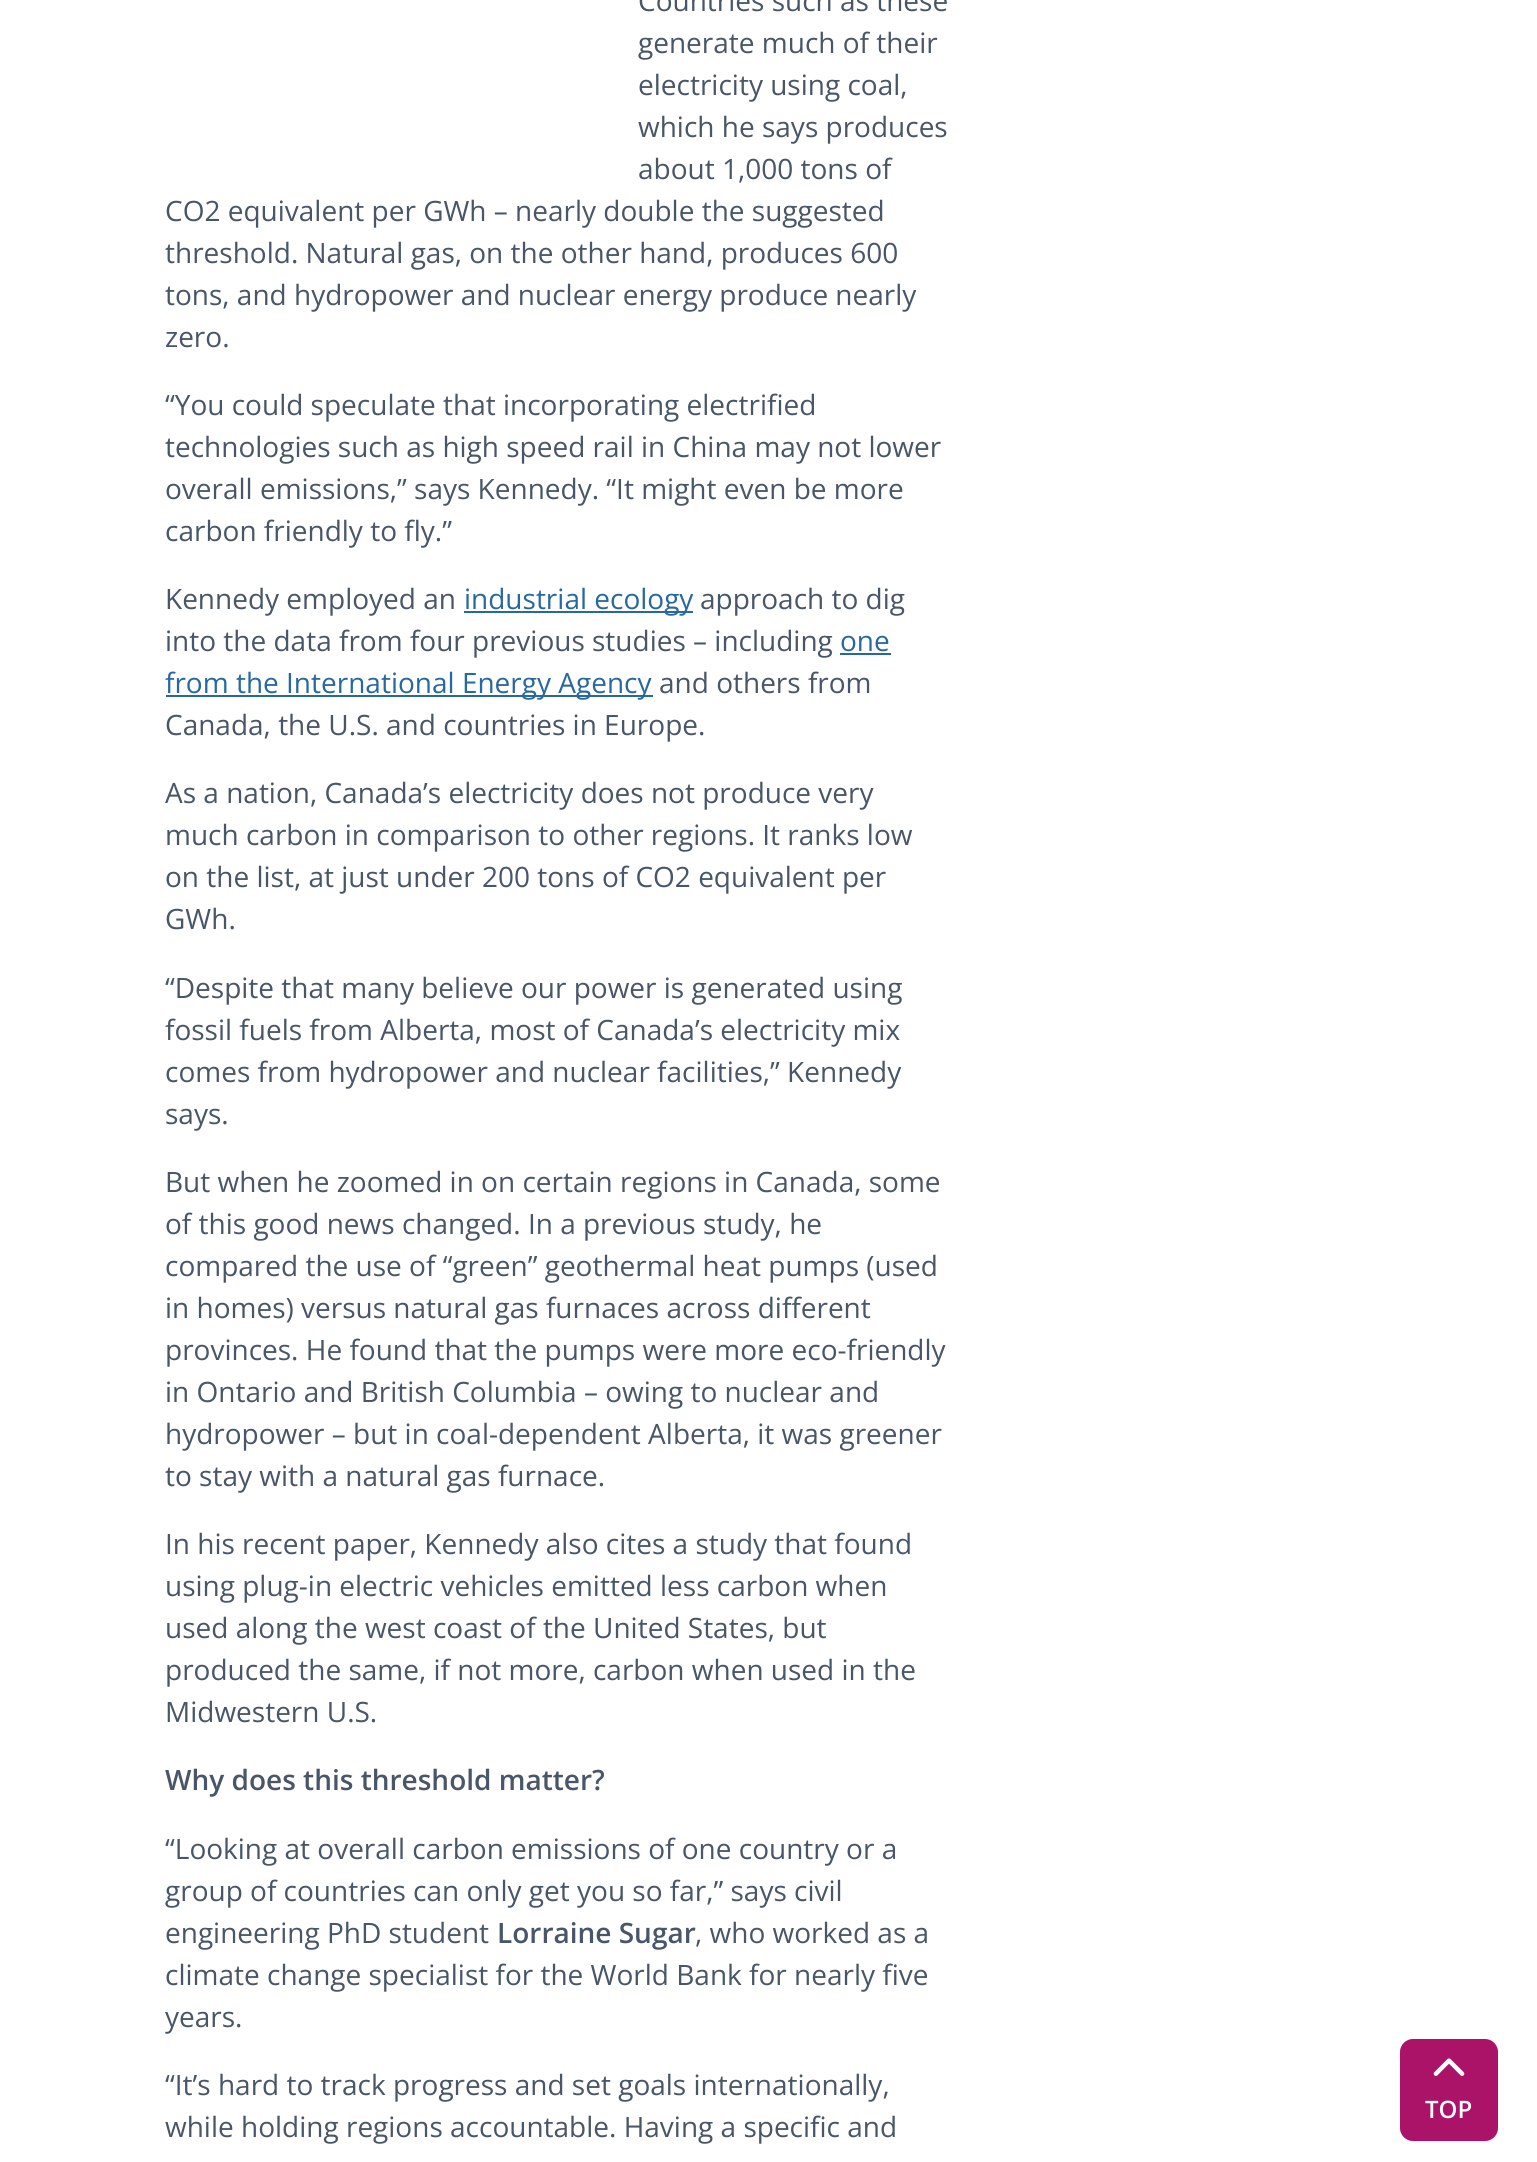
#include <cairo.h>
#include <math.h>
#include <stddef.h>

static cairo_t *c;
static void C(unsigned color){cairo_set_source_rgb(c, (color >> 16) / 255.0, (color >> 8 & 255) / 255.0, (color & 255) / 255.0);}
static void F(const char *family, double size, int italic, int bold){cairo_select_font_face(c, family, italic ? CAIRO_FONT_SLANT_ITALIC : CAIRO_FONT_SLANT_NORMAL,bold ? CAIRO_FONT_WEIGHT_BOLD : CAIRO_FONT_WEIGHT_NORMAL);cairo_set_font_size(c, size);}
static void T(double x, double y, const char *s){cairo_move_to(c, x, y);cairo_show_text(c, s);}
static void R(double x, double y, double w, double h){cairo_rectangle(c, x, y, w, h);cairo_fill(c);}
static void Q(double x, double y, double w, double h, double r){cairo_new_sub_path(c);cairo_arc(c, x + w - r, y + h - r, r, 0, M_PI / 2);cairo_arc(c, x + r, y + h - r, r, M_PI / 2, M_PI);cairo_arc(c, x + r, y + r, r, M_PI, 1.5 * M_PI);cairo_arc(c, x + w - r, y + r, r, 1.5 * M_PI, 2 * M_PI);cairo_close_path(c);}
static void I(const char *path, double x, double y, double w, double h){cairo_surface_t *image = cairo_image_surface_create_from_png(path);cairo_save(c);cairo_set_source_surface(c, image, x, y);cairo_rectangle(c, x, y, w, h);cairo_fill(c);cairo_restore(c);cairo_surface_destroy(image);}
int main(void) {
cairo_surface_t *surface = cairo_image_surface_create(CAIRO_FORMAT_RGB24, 1537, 2162);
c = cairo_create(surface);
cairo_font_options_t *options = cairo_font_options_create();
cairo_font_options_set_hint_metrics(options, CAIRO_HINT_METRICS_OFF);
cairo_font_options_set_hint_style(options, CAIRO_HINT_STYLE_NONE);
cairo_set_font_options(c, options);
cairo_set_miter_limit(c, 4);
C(0xffffff);
cairo_paint(c);
F("Open Sans",28,0,0);
C(0x485667);
T(638,11,"Countries such as these");
T(638,53,"generate much of their");
T(638,95,"electricity using coal,");
T(638,137,"which he says produces");
T(638,179,"about 1,000 tons of");
T(165,221,"CO2 equivalent per GWh – nearly double the suggested");
T(165,263,"threshold. Natural gas, on the other hand, produces 600");
T(165,305,"tons, and hydropower and nuclear energy produce nearly");
T(165,347,"zero.");
T(165,415,"“You could speculate that incorporating electrified");
T(165,457,"technologies such as high speed rail in China may not lower");
T(165,499,"overall emissions,” says Kennedy. “It might even be more");
T(165,541,"carbon friendly to fly.”");
T(165,609,"Kennedy employed an");
C(0x2868a0);
R(464,611,229,2);
T(464,609,"industrial ecology");
C(0x485667);
T(700,609,"approach to dig");
T(165,651,"into the data from four previous studies – including");
C(0x2868a0);
T(840,651,"one");
R(840,653,51,2);
R(166,695,487,2);
T(165,693,"from the International Energy Agency");
C(0x485667);
T(659,693,"and others from");
T(165,735,"Canada, the U.S. and countries in Europe.");
T(165,803,"As a nation, Canada’s electricity does not produce very");
T(165,845,"much carbon in comparison to other regions. It ranks low");
T(165,887,"on the list, at just under 200 tons of CO2 equivalent per");
T(165,929,"GWh.");
T(165,998,"“Despite that many believe our power is generated using");
T(165,1040,"fossil fuels from Alberta, most of Canada’s electricity mix");
T(165,1082,"comes from hydropower and nuclear facilities,” Kennedy");
T(165,1124,"says.");
T(165,1192,"But when he zoomed in on certain regions in Canada, some");
T(165,1234,"of this good news changed. In a previous study, he");
T(165,1276,"compared the use of “green” geothermal heat pumps (used");
T(165,1318,"in homes) versus natural gas furnaces across different");
T(165,1360,"provinces. He found that the pumps were more eco-friendly");
T(165,1402,"in Ontario and British Columbia – owing to nuclear and");
T(165,1444,"hydropower – but in coal-dependent Alberta, it was greener");
T(165,1486,"to stay with a natural gas furnace.");
T(165,1554,"In his recent paper, Kennedy also cites a study that found");
T(165,1596,"using plug-in electric vehicles emitted less carbon when");
T(165,1638,"used along the west coast of the United States, but");
T(165,1680,"produced the same, if not more, carbon when used in the");
T(165,1722,"Midwestern U.S.");
F("Open Sans SemiBold",28,0,0);
T(165,1790,"Why does this threshold matter?");
F("Open Sans",28,0,0);
T(165,1859,"“Looking at overall carbon emissions of one country or a");
T(165,1901,"group of countries can only get you so far,” says civil");
T(165,1943,"engineering PhD student");
F("Open Sans SemiBold",28,0,0);
T(497,1943,"Lorraine Sugar");
F("Open Sans",28,0,0);
T(695,1943,", who worked as a");
T(165,1985,"climate change specialist for the World Bank for nearly five");
T(165,2027,"years.");
T(165,2095,"“It’s hard to track progress and set goals internationally,");
T(165,2137,"while holding regions accountable. Having a specific and");
C(0xab1368);
Q(1397.5,2036.5,103,107,15.5);
cairo_fill_preserve(c);
C(0xffffff);
cairo_set_line_width(c,5);
cairo_stroke(c);
I("1.png",1433,2058,32,18);
F("Open Sans SemiBold",24,0,0);
T(1425,2118,"TOP");
cairo_surface_write_to_png(surface, "o.png");
cairo_font_options_destroy(options);
cairo_destroy(c);
cairo_surface_destroy(surface);
return 0;
}
